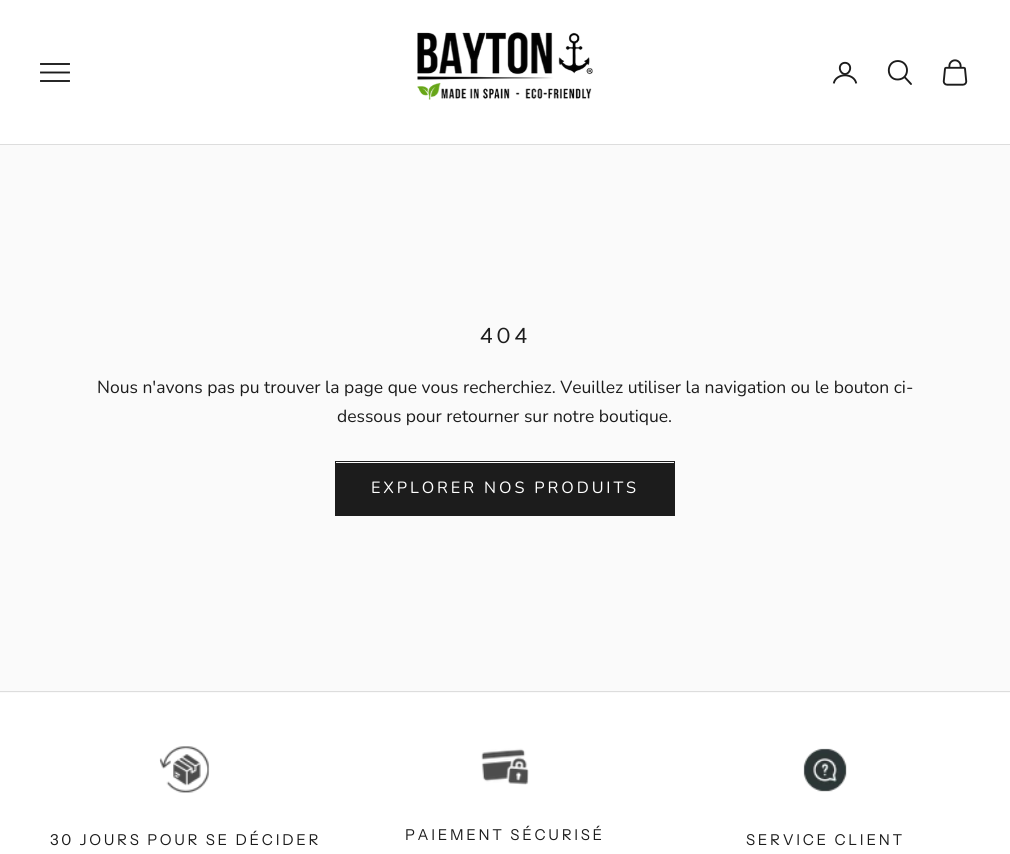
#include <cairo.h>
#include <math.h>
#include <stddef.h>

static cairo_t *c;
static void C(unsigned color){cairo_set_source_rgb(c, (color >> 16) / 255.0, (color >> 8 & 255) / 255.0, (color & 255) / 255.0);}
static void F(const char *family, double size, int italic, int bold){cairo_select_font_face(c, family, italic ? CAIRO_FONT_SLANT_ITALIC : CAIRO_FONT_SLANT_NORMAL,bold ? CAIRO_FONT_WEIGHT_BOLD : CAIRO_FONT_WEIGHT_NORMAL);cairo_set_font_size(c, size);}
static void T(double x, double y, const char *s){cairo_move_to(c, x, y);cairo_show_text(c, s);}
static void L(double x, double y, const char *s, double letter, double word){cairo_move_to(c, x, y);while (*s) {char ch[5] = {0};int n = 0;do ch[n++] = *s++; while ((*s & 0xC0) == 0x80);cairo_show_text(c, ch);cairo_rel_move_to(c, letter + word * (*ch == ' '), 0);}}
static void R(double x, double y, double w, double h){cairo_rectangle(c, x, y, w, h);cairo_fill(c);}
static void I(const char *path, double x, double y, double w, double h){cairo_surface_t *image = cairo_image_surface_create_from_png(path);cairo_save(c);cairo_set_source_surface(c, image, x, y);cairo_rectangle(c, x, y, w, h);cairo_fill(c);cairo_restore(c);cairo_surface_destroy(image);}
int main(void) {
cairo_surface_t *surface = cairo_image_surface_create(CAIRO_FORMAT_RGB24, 1010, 854);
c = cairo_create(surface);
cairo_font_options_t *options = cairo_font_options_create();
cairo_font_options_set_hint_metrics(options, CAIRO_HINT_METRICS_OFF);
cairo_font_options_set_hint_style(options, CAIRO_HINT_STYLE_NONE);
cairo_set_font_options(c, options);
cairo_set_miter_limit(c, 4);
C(0xfafafa);
cairo_paint(c);
C(0xffffff);
R(0,0,1010,144);
C(0xdddddd);
R(0,144,1010,1);
cairo_new_path(c);
cairo_move_to(c,41,81);
cairo_line_to(c,69,81);
cairo_move_to(c,41,72.5);
cairo_line_to(c,69,72.5);
cairo_move_to(c,41,64);
cairo_line_to(c,69,64);
C(0x1c1c1c);
cairo_set_line_width(c,1.9);
cairo_set_line_cap(c,CAIRO_LINE_CAP_SQUARE);
cairo_stroke(c);
I("1.png",417,32,176,68);
I("2.png",832,61,26,23);
cairo_new_path(c);
cairo_move_to(c,898,61);
cairo_curve_to(c,885.5,61,886,80,898,79.5);
cairo_curve_to(c,910,79,910,61.5,898,61);
cairo_close_path(c);
cairo_set_line_cap(c,CAIRO_LINE_CAP_BUTT);
cairo_stroke(c);
cairo_new_path(c);
cairo_move_to(c,905,77.5);
cairo_line_to(c,911,84);
cairo_set_line_cap(c,CAIRO_LINE_CAP_ROUND);
cairo_stroke(c);
I("3.png",942,59,26,27);
F("Instrument Sans",21,0,0);
L(480,343,"404",4,0);
F("Nunito",17.5,0,0);
T(97,393,"Nous n'avons pas pu trouver la page que vous recherchiez. Veuillez utiliser la navigation ou le bouton ci-");
T(337,422,"dessous pour retourner sur notre boutique.");
R(336,463,338,52);
cairo_rectangle(c,335.5,461.5,339,54);
cairo_set_line_width(c,1);
cairo_set_line_cap(c,CAIRO_LINE_CAP_BUTT);
cairo_stroke(c);
F("Nunito",16.25,0,0);
C(0xffffff);
L(371,493,"EXPLORER NOS PRODUITS",2.9,0);
R(0,693,1010,161);
C(0xdddddd);
R(0,691,1010,1);
I("4.png",159,746,51,47);
F("Instrument Sans",15,0,0);
C(0x1c1c1c);
L(50,845,"30 JOURS POUR SE DÉCIDER",2.7,0);
I("5.png",481,748,48,37);
L(405,840,"PAIEMENT SÉCURISÉ",2.7,0);
I("6.png",803,748,44,44);
L(746,845,"SERVICE CLIENT",2.7,0);
cairo_surface_write_to_png(surface, "o.png");
cairo_font_options_destroy(options);
cairo_destroy(c);
cairo_surface_destroy(surface);
return 0;
}
